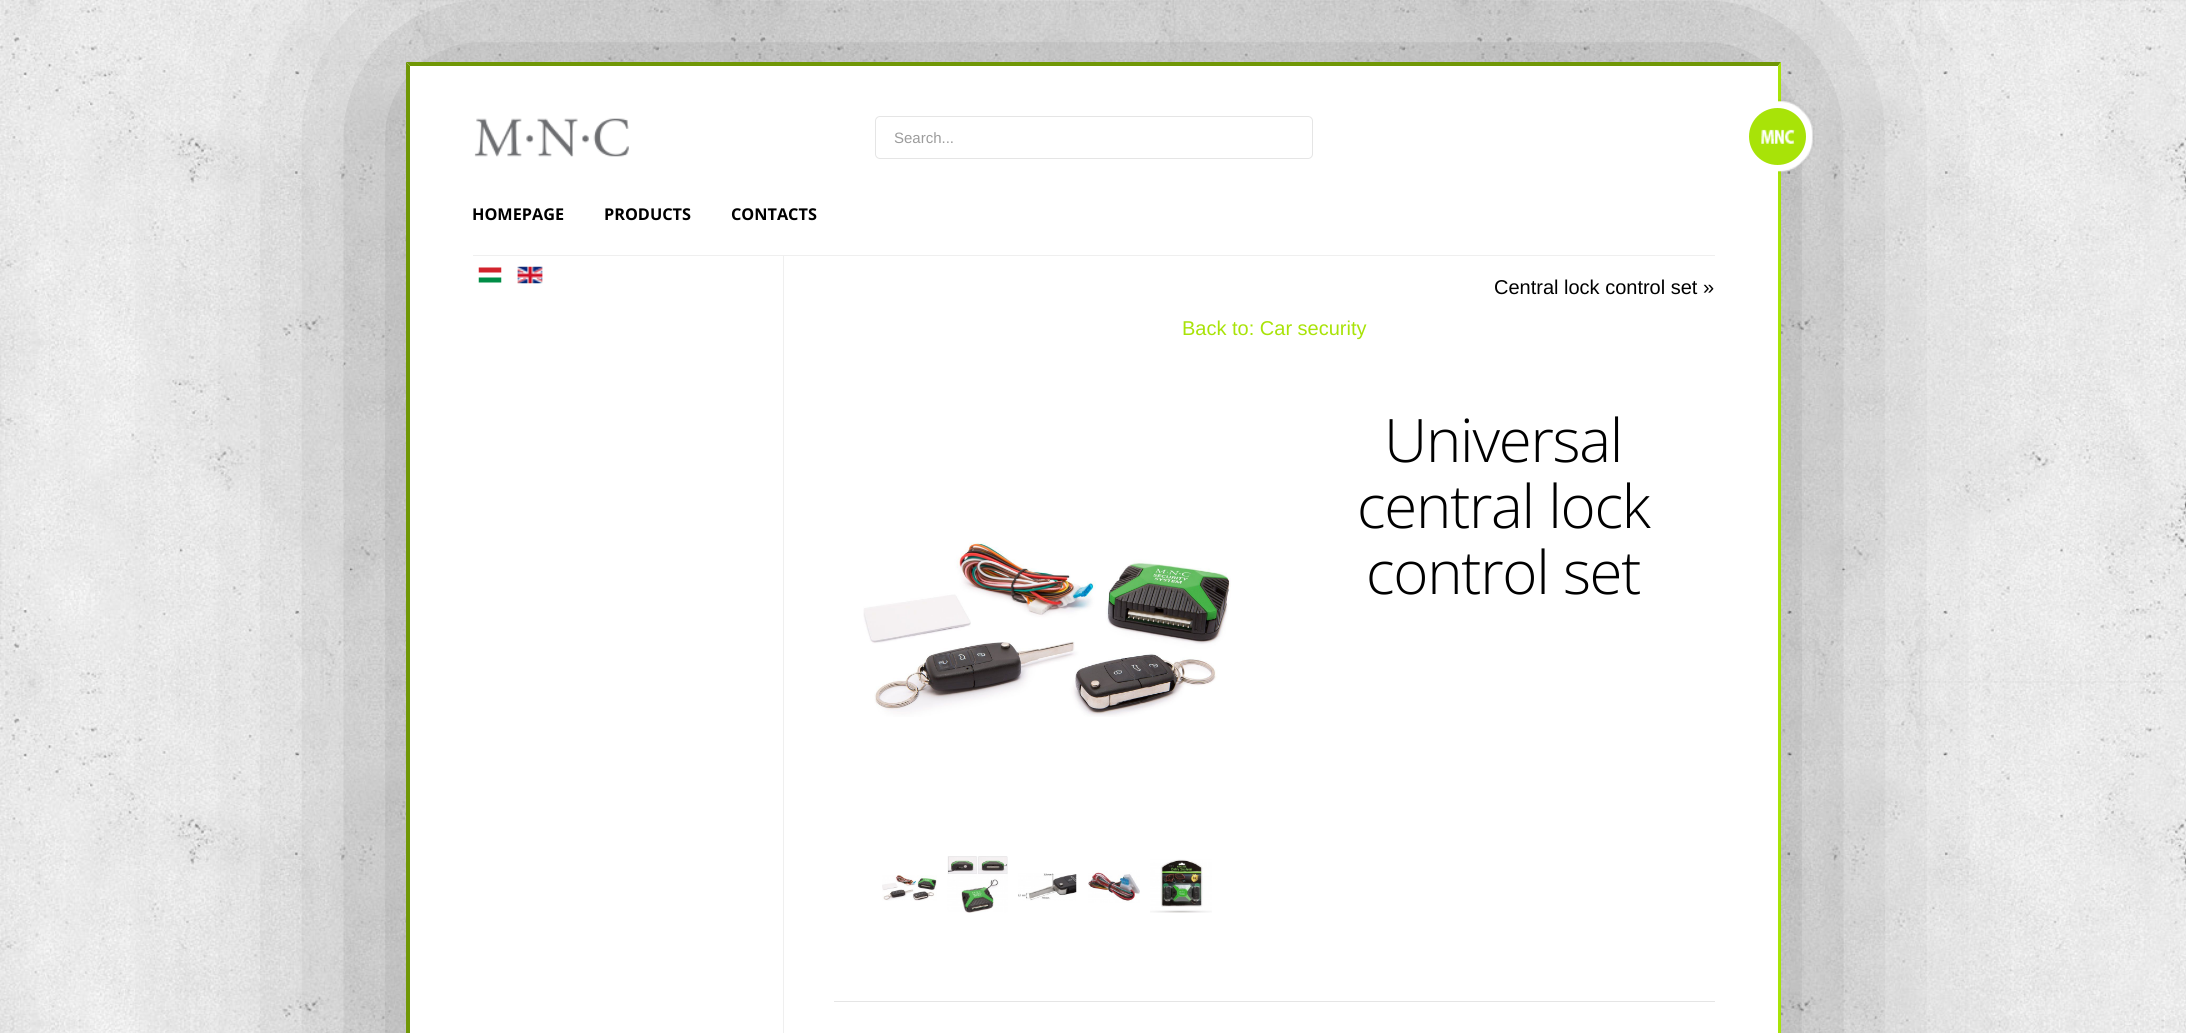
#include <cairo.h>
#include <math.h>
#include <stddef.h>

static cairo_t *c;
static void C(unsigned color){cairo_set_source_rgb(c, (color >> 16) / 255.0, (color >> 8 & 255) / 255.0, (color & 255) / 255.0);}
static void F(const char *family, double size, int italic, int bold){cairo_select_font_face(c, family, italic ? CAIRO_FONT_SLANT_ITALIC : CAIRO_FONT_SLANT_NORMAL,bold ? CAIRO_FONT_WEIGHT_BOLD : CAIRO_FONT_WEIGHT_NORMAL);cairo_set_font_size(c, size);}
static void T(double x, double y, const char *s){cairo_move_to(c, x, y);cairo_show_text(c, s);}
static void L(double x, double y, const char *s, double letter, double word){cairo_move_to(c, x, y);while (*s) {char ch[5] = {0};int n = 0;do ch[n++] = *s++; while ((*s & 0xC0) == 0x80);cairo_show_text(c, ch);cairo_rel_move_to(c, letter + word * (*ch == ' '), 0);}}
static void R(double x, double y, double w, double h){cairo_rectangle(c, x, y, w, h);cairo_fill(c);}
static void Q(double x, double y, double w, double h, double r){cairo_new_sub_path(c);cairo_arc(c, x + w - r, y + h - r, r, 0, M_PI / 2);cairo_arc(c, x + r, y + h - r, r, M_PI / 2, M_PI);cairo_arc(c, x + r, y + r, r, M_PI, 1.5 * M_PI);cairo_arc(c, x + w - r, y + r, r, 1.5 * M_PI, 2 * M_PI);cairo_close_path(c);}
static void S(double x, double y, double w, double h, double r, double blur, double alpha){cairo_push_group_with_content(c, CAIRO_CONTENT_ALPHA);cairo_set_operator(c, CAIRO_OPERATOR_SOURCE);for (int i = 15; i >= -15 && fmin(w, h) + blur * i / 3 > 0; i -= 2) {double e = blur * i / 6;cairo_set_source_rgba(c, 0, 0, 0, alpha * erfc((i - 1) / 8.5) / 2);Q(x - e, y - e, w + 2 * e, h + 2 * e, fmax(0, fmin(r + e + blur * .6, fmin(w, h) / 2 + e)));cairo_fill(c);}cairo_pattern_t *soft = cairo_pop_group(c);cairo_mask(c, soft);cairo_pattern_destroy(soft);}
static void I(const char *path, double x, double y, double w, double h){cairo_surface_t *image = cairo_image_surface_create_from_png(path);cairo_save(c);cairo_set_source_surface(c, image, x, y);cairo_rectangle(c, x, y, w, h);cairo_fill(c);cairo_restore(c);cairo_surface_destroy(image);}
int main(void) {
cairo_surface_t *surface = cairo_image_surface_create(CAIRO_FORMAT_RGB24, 2186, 1033);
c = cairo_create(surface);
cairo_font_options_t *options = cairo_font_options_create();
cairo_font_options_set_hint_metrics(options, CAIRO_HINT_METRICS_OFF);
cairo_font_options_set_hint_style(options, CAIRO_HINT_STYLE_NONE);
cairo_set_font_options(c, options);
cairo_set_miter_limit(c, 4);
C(0xffffff);
cairo_paint(c);
I("1.png",0,0,2186,1033);
C(0x000000);
S(406,63,1375,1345,0,125,.35);
C(0xffffff);
R(407,63,1374,970);
C(0x709705);
cairo_new_path(c);
cairo_move_to(c,406,62);
cairo_line_to(c,1781,62);
cairo_line_to(c,1778,66);
cairo_line_to(c,410,66);
cairo_close_path(c);
cairo_fill(c);
C(0xa8e308);
cairo_new_path(c);
cairo_move_to(c,1781,62);
cairo_line_to(c,1781,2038);
cairo_line_to(c,1778,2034);
cairo_line_to(c,1778,66);
cairo_close_path(c);
cairo_fill(c);
C(0x709705);
cairo_new_path(c);
cairo_move_to(c,406,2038);
cairo_line_to(c,406,62);
cairo_line_to(c,410,66);
cairo_line_to(c,410,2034);
cairo_close_path(c);
cairo_fill(c);
I("2.png",474,118,155,39);
Q(875.5,116.5,437,42,4.5);
C(0xe5e5e5);
cairo_set_line_width(c,1);
cairo_stroke(c);
F("Liberation Sans",15,0,0);
C(0x9c9c9c);
T(894,143,"Search...");
F("Open Sans",16.25,0,1);
C(0x000000);
T(472,220,"HOMEPAGE");
T(604,220,"PRODUCTS");
T(731,220,"CONTACTS");
I("3.png",1778,99,37,75);
C(0xa8e308);
cairo_arc(c,1777.5,136.5,28.5,0,2 * M_PI);
cairo_fill(c);
I("4.png",1761,129,34,15);
C(0xefefef);
R(473,255,1242,1);
I("5.png",478,267,24,16);
I("6.png",517,266,26,18);
R(783,256,1,777);
F("Liberation Sans",20,0,0);
C(0x000000);
T(1494,294,"Central lock control set »");
C(0xa8e308);
T(1182,335,"Back to: Car security");
F("Open Sans Light",60,0,0);
C(0x000000);
L(1384,462,"Universal",-1.25,0);
L(1357,528,"central lock",-1.25,0);
L(1366,594,"control set",-1.25,0);
I("7.png",863,542,368,175);
I("8.png",882,875,55,26);
I("9.png",947,856,61,57);
I("10.png",1018,873,59,28);
I("11.png",1088,870,52,33);
I("12.png",1150,859,62,54);
C(0xe5e5e5);
R(834,1001,881,1);
cairo_surface_write_to_png(surface, "o.png");
cairo_font_options_destroy(options);
cairo_destroy(c);
cairo_surface_destroy(surface);
return 0;
}
